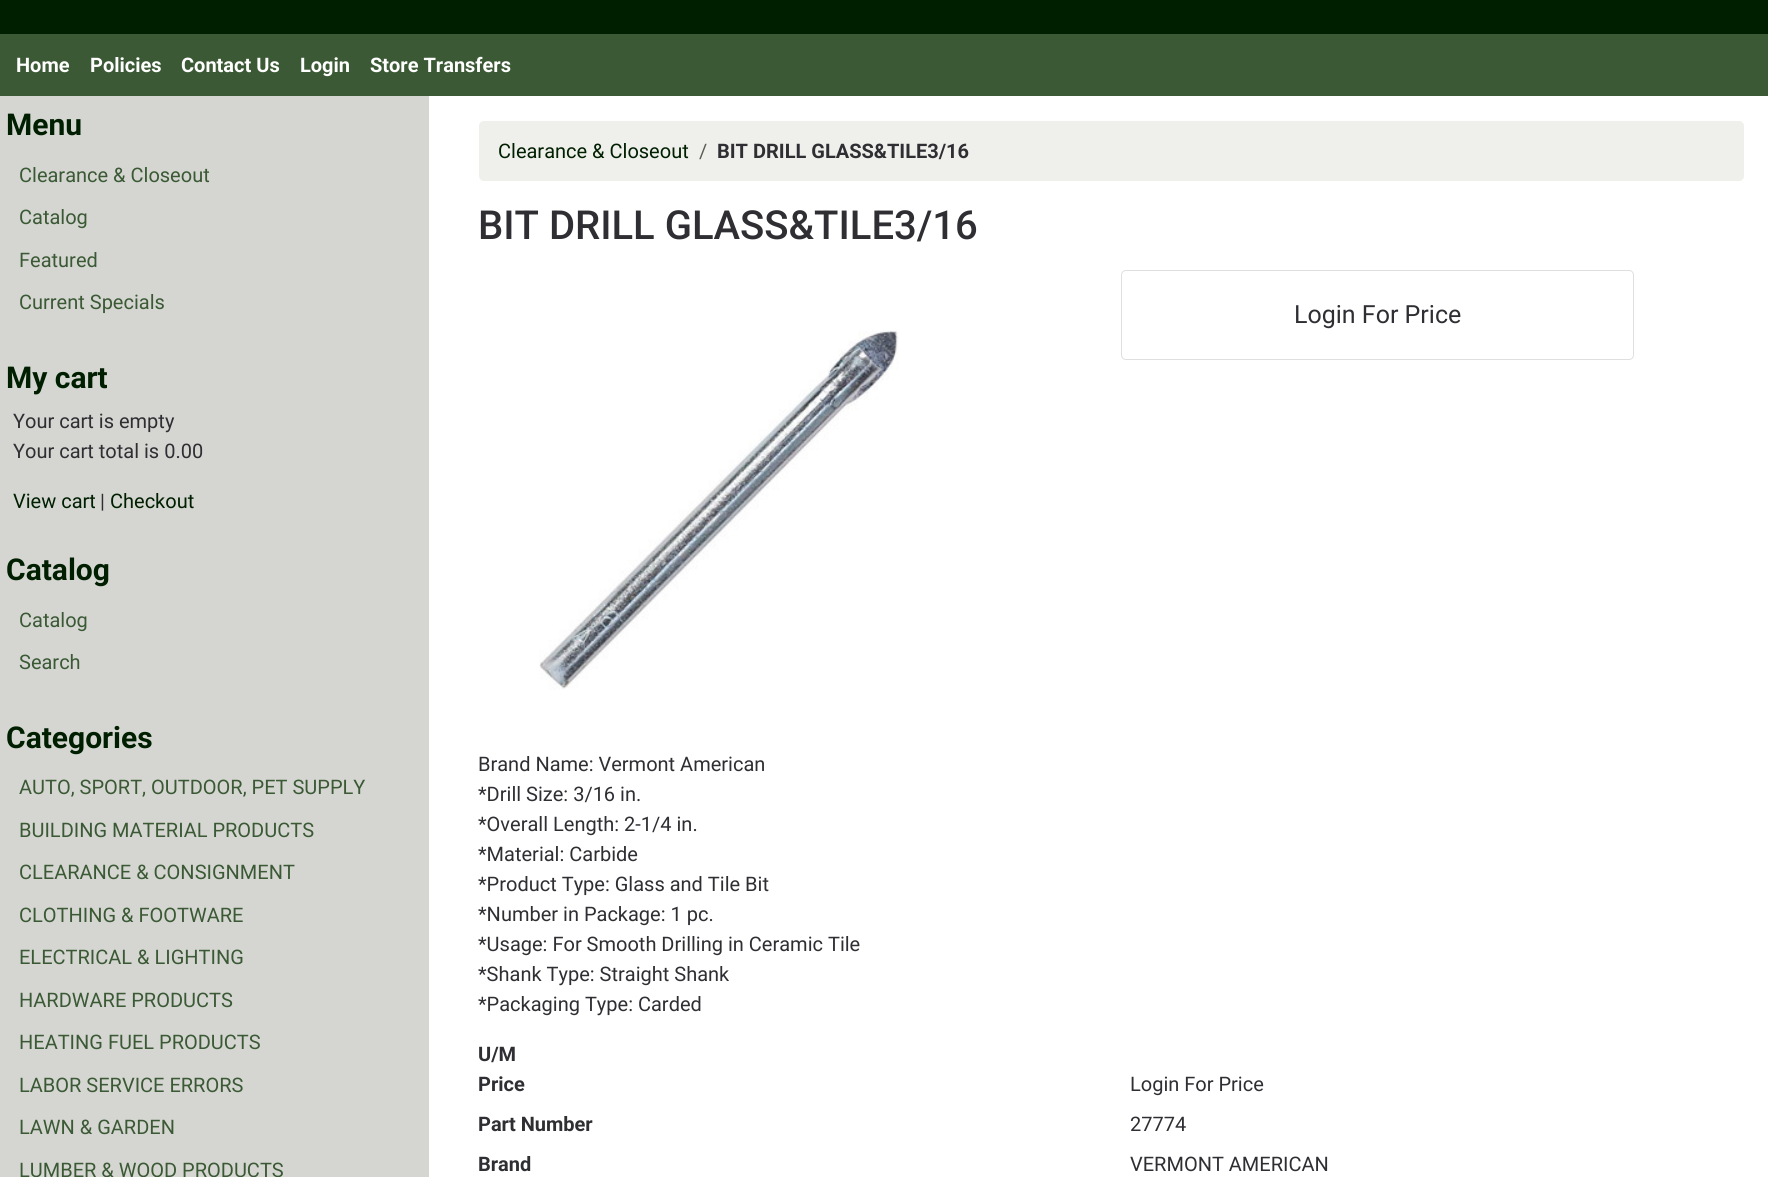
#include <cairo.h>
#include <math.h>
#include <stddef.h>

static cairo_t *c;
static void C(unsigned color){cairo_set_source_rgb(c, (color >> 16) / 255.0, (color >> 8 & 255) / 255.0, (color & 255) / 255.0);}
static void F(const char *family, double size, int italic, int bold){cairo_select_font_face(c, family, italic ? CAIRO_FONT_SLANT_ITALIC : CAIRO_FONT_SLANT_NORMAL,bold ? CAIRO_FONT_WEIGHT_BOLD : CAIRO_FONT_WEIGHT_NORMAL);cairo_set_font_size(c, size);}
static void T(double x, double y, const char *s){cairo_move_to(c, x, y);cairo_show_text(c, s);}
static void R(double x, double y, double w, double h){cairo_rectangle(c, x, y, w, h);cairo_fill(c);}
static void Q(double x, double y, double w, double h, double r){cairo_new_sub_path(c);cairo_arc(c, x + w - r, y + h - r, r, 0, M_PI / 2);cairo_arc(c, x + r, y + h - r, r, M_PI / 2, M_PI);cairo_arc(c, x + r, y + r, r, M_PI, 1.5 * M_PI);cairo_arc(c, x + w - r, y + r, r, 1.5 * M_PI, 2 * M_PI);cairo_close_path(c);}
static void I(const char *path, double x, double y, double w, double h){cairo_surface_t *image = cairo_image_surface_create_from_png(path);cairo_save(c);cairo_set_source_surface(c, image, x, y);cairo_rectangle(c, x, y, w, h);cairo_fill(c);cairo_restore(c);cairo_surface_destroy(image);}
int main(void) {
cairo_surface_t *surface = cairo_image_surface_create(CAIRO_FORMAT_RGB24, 1768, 1177);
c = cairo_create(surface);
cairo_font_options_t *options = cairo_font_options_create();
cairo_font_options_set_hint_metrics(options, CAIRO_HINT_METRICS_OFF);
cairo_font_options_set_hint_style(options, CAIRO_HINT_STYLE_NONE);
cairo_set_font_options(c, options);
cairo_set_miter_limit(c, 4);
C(0xffffff);
cairo_paint(c);
C(0x001f00);
R(0,0,1768,34);
C(0x3a5934);
R(0,34,1768,62);
F("Roboto",20,0,1);
C(0xffffff);
T(16,72,"Home");
T(90,72,"Policies");
T(181,72,"Contact Us");
T(300,72,"Login");
T(370,72,"Store Transfers");
C(0xd5d6d2);
R(0,96,429,1081);
F("Roboto",30,0,1);
C(0x001f00);
T(6,135,"Menu");
F("Roboto",20,0,0);
C(0x3a5934);
T(19,182,"Clearance & Closeout");
T(19,224,"Catalog");
T(19,267,"Featured");
T(19,309,"Current Specials");
F("Roboto",30,0,1);
C(0x001f00);
T(6,388,"My cart");
F("Roboto",20,0,0);
C(0x2f2e33);
T(13,428,"Your cart is empty");
T(13,458,"Your cart total is 0.00");
C(0x001f00);
T(13,508,"View cart");
C(0x2f2e33);
T(100,508,"|");
C(0x001f00);
T(110,508,"Checkout");
F("Roboto",30,0,1);
T(6,580,"Catalog");
F("Roboto",20,0,0);
C(0x3a5934);
T(19,627,"Catalog");
T(19,669,"Search");
F("Roboto",30,0,1);
C(0x001f00);
T(6,748,"Categories");
F("Roboto",20,0,0);
C(0x3a5934);
T(19,794,"AUTO, SPORT, OUTDOOR, PET SUPPLY");
T(19,837,"BUILDING MATERIAL PRODUCTS");
T(19,879,"CLEARANCE & CONSIGNMENT");
T(19,922,"CLOTHING & FOOTWARE");
T(19,964,"ELECTRICAL & LIGHTING");
T(19,1007,"HARDWARE PRODUCTS");
T(19,1049,"HEATING FUEL PRODUCTS");
T(19,1092,"LABOR SERVICE ERRORS");
T(19,1134,"LAWN & GARDEN");
T(19,1177,"LUMBER & WOOD PRODUCTS");
C(0xeff0ec);
Q(479,121,1265,60,5);
cairo_fill(c);
C(0x001f00);
T(498,158,"Clearance & Closeout");
C(0x5b5d55);
T(699,158,"/");
F("Roboto",20,0,1);
C(0x2f2e33);
T(717,158,"BIT DRILL GLASS&TILE3/16");
F("Roboto Medium",40,0,0);
T(478,239,"BIT DRILL GLASS&TILE3/16");
Q(1121.5,270.5,512,89,4.5);
C(0xdfdfdf);
cairo_set_line_width(c,1);
cairo_stroke(c);
F("Roboto",25,0,0);
C(0x2f2e33);
T(1294,323,"Login For Price");
I("1.png",539,330,360,360);
F("Roboto",20,0,0);
T(478,771,"Brand Name: Vermont American");
T(478,801,"*Drill Size: 3/16 in.");
T(478,831,"*Overall Length: 2-1/4 in.");
T(478,861,"*Material: Carbide");
T(478,891,"*Product Type: Glass and Tile Bit");
T(478,921,"*Number in Package: 1 pc.");
T(478,951,"*Usage: For Smooth Drilling in Ceramic Tile");
T(478,981,"*Shank Type: Straight Shank");
T(478,1011,"*Packaging Type: Carded");
F("Roboto",20,0,1);
T(478,1061,"U/M");
T(478,1091,"Price");
F("Roboto",20,0,0);
T(1130,1091,"Login For Price");
F("Roboto",20,0,1);
T(478,1131,"Part Number");
F("Roboto",20,0,0);
T(1130,1131,"27774");
F("Roboto",20,0,1);
T(478,1171,"Brand");
F("Roboto",20,0,0);
T(1130,1171,"VERMONT AMERICAN");
cairo_surface_write_to_png(surface, "o.png");
cairo_font_options_destroy(options);
cairo_destroy(c);
cairo_surface_destroy(surface);
return 0;
}
